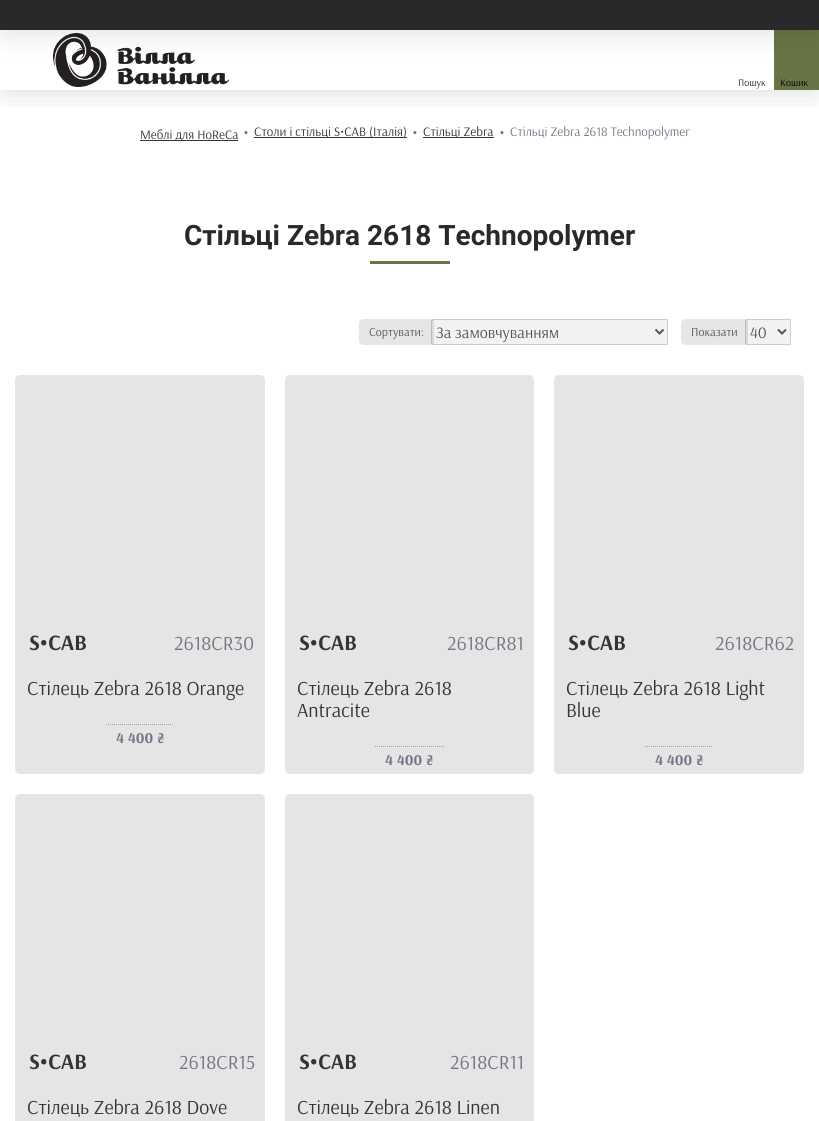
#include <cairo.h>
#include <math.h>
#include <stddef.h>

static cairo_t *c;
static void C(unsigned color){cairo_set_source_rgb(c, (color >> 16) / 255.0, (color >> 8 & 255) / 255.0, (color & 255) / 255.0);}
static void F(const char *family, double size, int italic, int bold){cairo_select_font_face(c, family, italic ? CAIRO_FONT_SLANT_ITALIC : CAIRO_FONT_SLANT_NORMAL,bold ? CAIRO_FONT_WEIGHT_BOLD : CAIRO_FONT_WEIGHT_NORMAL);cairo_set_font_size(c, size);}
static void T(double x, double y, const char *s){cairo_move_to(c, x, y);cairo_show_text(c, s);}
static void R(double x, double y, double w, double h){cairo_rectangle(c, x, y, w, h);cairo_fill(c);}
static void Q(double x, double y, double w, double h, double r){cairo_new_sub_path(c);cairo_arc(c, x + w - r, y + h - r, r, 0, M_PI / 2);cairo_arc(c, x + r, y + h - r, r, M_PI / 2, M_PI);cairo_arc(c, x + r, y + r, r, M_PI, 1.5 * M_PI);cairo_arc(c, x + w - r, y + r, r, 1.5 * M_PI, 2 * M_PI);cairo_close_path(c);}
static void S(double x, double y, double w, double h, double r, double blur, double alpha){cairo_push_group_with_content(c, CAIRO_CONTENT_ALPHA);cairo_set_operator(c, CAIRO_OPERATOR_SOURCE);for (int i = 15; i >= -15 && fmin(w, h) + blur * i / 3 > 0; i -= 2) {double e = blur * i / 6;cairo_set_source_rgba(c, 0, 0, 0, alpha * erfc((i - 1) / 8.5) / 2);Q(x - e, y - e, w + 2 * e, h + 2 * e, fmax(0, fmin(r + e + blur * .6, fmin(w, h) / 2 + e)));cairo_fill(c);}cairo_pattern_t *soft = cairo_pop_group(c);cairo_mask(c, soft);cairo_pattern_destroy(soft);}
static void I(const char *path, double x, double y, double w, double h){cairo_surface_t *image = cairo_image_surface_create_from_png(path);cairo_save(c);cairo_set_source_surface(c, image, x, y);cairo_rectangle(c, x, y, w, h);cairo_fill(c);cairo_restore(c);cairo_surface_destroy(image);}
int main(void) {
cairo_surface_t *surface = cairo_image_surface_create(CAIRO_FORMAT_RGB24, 819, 1121);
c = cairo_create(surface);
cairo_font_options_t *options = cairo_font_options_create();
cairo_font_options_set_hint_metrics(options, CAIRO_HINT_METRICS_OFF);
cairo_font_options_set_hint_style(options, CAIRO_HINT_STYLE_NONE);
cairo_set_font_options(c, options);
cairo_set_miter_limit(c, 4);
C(0xffffff);
cairo_paint(c);
cairo_save(c);
cairo_rectangle(c,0,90,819,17);
cairo_clip(c);
C(0x000000);
S(5,40,809,50,0,15,.15);
cairo_restore(c);
I("1.png",53,33,176,54);
C(0x687446);
R(774,30,45,60);
C(0x000000);
S(5,10,809,20,0,15,.15);
C(0x29292b);
R(0,0,819,30);
F("Arsenal",10,0,0);
T(738,86,"Пошук");
C(0x000000);
T(780,86,"Кошик");
C(0x343438);
R(140,140,98,1);
F("Arsenal",13,0,0);
T(140,139,"Мeблі для HoReCa");
F("Arsenal",20,0,0);
C(0x727684);
T(243,139,"•");
C(0x343438);
R(254,137,153,1);
F("Arsenal",13,0,0);
T(254,136,"Столи і стільці S•CAB (Італія)");
F("Arsenal",20,0,0);
C(0x727684);
T(412,139,"•");
C(0x343438);
R(423,137,71,1);
F("Arsenal",13,0,0);
T(423,136,"Стільці Zebra");
F("Arsenal",20,0,0);
C(0x727684);
T(499,139,"•");
F("Arsenal",13,0,0);
T(510,136,"Стільці Zebra 2618 Technopolymer");
F("Roboto",28,0,1);
C(0x29292b);
T(184,245,"Стільці Zebra 2618 Technopolymer");
C(0x687446);
R(370,261,80,3);
C(0xf2f2f2);
cairo_new_path(c);
cairo_move_to(c,434,319);
cairo_line_to(c,668,319);
cairo_line_to(c,668,345);
cairo_line_to(c,434,345);
cairo_curve_to(c,432.5,345,431,343.5,431,342);
cairo_line_to(c,431,322);
cairo_curve_to(c,431,320.5,432.5,319,434,319);
cairo_close_path(c);
cairo_fill(c);
cairo_new_path(c);
cairo_move_to(c,434,319.5);
cairo_line_to(c,667.5,319.5);
cairo_line_to(c,667.5,344.5);
cairo_line_to(c,434,344.5);
cairo_curve_to(c,432.5,344.5,431.5,343.5,431.5,342);
cairo_line_to(c,431.5,322);
cairo_curve_to(c,431.5,320.5,432.5,319.5,434,319.5);
cairo_close_path(c);
cairo_set_source_rgba(c,0,0,0,0.15);
cairo_set_line_width(c,1);
cairo_stroke(c);
cairo_set_source_rgba(c,0,0,0,0.1);
cairo_new_path(c);
cairo_move_to(c,363,319);
cairo_line_to(c,434,319);
cairo_line_to(c,434,345);
cairo_line_to(c,363,345);
cairo_curve_to(c,361,345,359,343,359,341);
cairo_line_to(c,359,323);
cairo_curve_to(c,359,321,361,319,363,319);
cairo_close_path(c);
cairo_fill(c);
F("Arsenal",12,0,0);
C(0x555555);
T(369,336,"Сортувати:");
cairo_new_path(c);
cairo_move_to(c,655.5,329.5);
cairo_line_to(c,659.5,333.5);
cairo_line_to(c,663.5,329.5);
cairo_set_line_width(c,2);
cairo_stroke(c);
F("Arsenal",16,0,0);
T(436,338,"За замовчуванням");
C(0xf2f2f2);
cairo_new_path(c);
cairo_move_to(c,748,319);
cairo_line_to(c,791,319);
cairo_line_to(c,791,345);
cairo_line_to(c,748,345);
cairo_curve_to(c,746.5,345,745,343.5,745,342);
cairo_line_to(c,745,322);
cairo_curve_to(c,745,320.5,746.5,319,748,319);
cairo_close_path(c);
cairo_fill(c);
cairo_new_path(c);
cairo_move_to(c,748,319.5);
cairo_line_to(c,790.5,319.5);
cairo_line_to(c,790.5,344.5);
cairo_line_to(c,748,344.5);
cairo_curve_to(c,746.5,344.5,745.5,343.5,745.5,342);
cairo_line_to(c,745.5,322);
cairo_curve_to(c,745.5,320.5,746.5,319.5,748,319.5);
cairo_close_path(c);
cairo_set_source_rgba(c,0,0,0,0.15);
cairo_set_line_width(c,1);
cairo_stroke(c);
cairo_set_source_rgba(c,0,0,0,0.1);
cairo_new_path(c);
cairo_move_to(c,685,319);
cairo_line_to(c,748,319);
cairo_line_to(c,748,345);
cairo_line_to(c,685,345);
cairo_curve_to(c,683,345,681,343,681,341);
cairo_line_to(c,681,323);
cairo_curve_to(c,681,321,683,319,685,319);
cairo_close_path(c);
cairo_fill(c);
F("Arsenal",12,0,0);
C(0x555555);
T(691,336,"Показати");
cairo_new_path(c);
cairo_move_to(c,778,329.5);
cairo_line_to(c,782,333.5);
cairo_line_to(c,786,329.5);
cairo_set_line_width(c,2);
cairo_stroke(c);
F("Arsenal",16,0,0);
T(750,338,"40");
C(0xe5e5e5);
Q(15,375,250,399,5);
cairo_fill(c);
F("Arsenal",22,0,1);
C(0x343438);
T(29,650,"S•CAB");
F("Arsenal",20,0,0);
C(0x727684);
T(174,650,"2618CR30");
C(0x343438);
T(27,695,"Стілець Zebra 2618 Orange");
cairo_new_path(c);
cairo_move_to(c,106,724.5);
cairo_line_to(c,174,724.5);
C(0xa0a0a0);
cairo_set_line_width(c,1);
cairo_set_dash(c,(double[]){1,1},2,0);
cairo_stroke(c);
F("Arsenal",15,0,1);
C(0x727684);
T(116,743,"4 400 ₴");
C(0xe5e5e5);
Q(285,375,249,399,5);
cairo_fill(c);
F("Arsenal",22,0,1);
C(0x343438);
T(299,650,"S•CAB");
F("Arsenal",20,0,0);
C(0x727684);
T(447,650,"2618CR81");
C(0x343438);
T(297,695,"Стілець Zebra 2618");
T(297,717,"Antracite");
cairo_new_path(c);
cairo_move_to(c,375,746.5);
cairo_line_to(c,444,746.5);
C(0xa0a0a0);
cairo_stroke(c);
F("Arsenal",15,0,1);
C(0x727684);
T(385,765,"4 400 ₴");
C(0xe5e5e5);
Q(554,375,250,399,5);
cairo_fill(c);
F("Arsenal",22,0,1);
C(0x343438);
T(568,650,"S•CAB");
F("Arsenal",20,0,0);
C(0x727684);
T(715,650,"2618CR62");
C(0x343438);
T(566,695,"Стілець Zebra 2618 Light");
T(566,717,"Blue");
cairo_new_path(c);
cairo_move_to(c,645,746.5);
cairo_line_to(c,713,746.5);
C(0xa0a0a0);
cairo_stroke(c);
F("Arsenal",15,0,1);
C(0x727684);
T(655,765,"4 400 ₴");
C(0xe5e5e5);
Q(15,794,250,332,5);
cairo_fill(c);
F("Arsenal",22,0,1);
C(0x343438);
T(29,1069,"S•CAB");
F("Arsenal",20,0,0);
C(0x727684);
T(179,1069,"2618CR15");
C(0x343438);
T(27,1114,"Стілець Zebra 2618 Dove");
C(0xe5e5e5);
Q(285,794,249,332,5);
cairo_fill(c);
F("Arsenal",22,0,1);
C(0x343438);
T(299,1069,"S•CAB");
F("Arsenal",20,0,0);
C(0x727684);
T(450,1069,"2618CR11");
C(0x343438);
T(297,1114,"Стілець Zebra 2618 Linen");
cairo_surface_write_to_png(surface, "o.png");
cairo_font_options_destroy(options);
cairo_destroy(c);
cairo_surface_destroy(surface);
return 0;
}
